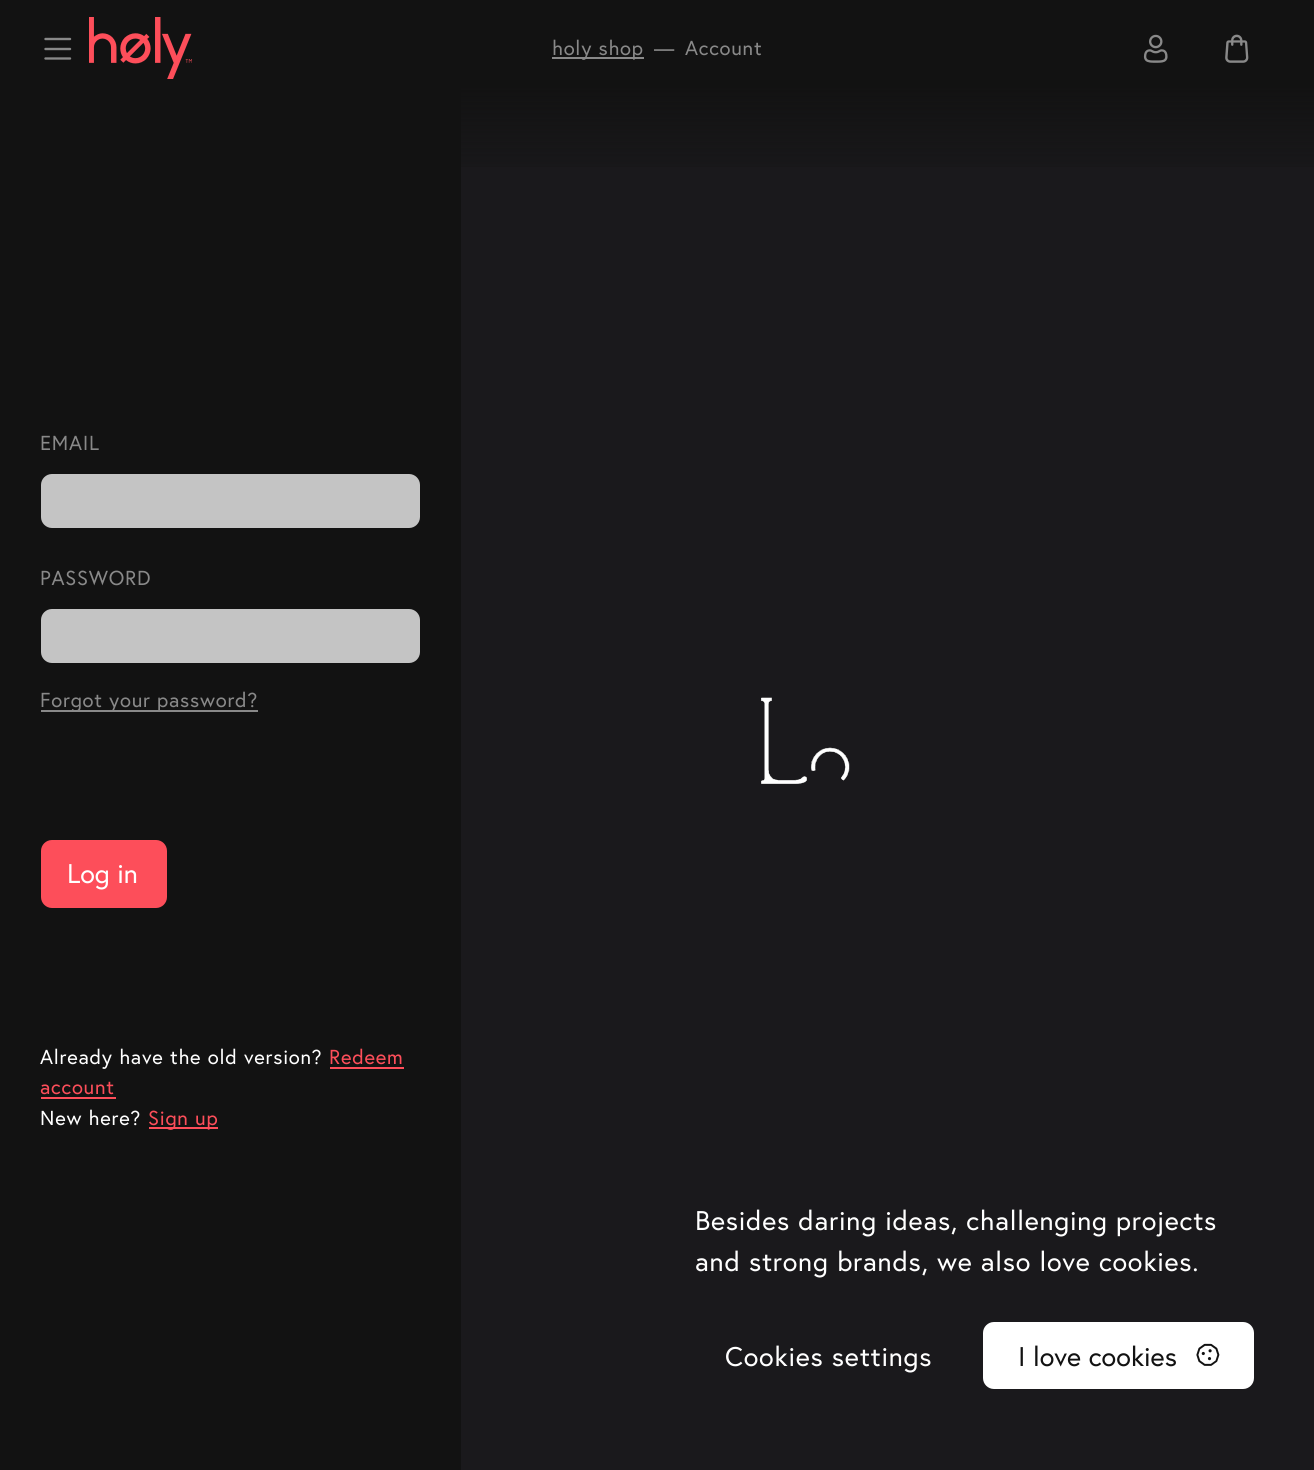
#include <cairo.h>
#include <math.h>
#include <stddef.h>

static cairo_t *c;
static void C(unsigned color){cairo_set_source_rgb(c, (color >> 16) / 255.0, (color >> 8 & 255) / 255.0, (color & 255) / 255.0);}
static void F(const char *family, double size, int italic, int bold){cairo_select_font_face(c, family, italic ? CAIRO_FONT_SLANT_ITALIC : CAIRO_FONT_SLANT_NORMAL,bold ? CAIRO_FONT_WEIGHT_BOLD : CAIRO_FONT_WEIGHT_NORMAL);cairo_set_font_size(c, size);}
static void T(double x, double y, const char *s){cairo_move_to(c, x, y);cairo_show_text(c, s);}
static void L(double x, double y, const char *s, double letter, double word){cairo_move_to(c, x, y);while (*s) {char ch[5] = {0};int n = 0;do ch[n++] = *s++; while ((*s & 0xC0) == 0x80);cairo_show_text(c, ch);cairo_rel_move_to(c, letter + word * (*ch == ' '), 0);}}
static void R(double x, double y, double w, double h){cairo_rectangle(c, x, y, w, h);cairo_fill(c);}
static void Q(double x, double y, double w, double h, double r){cairo_new_sub_path(c);cairo_arc(c, x + w - r, y + h - r, r, 0, M_PI / 2);cairo_arc(c, x + r, y + h - r, r, M_PI / 2, M_PI);cairo_arc(c, x + r, y + r, r, M_PI, 1.5 * M_PI);cairo_arc(c, x + w - r, y + r, r, 1.5 * M_PI, 2 * M_PI);cairo_close_path(c);}
static void I(const char *path, double x, double y, double w, double h){cairo_surface_t *image = cairo_image_surface_create_from_png(path);cairo_save(c);cairo_set_source_surface(c, image, x, y);cairo_rectangle(c, x, y, w, h);cairo_fill(c);cairo_restore(c);cairo_surface_destroy(image);}
int main(void) {
cairo_surface_t *surface = cairo_image_surface_create(CAIRO_FORMAT_RGB24, 1314, 1470);
c = cairo_create(surface);
cairo_font_options_t *options = cairo_font_options_create();
cairo_font_options_set_hint_metrics(options, CAIRO_HINT_METRICS_OFF);
cairo_font_options_set_hint_style(options, CAIRO_HINT_STYLE_NONE);
cairo_set_font_options(c, options);
cairo_set_miter_limit(c, 4);
cairo_pattern_t *gradient;
C(0x121212);
cairo_paint(c);
cairo_new_path(c);
cairo_move_to(c,45.5,39);
cairo_line_to(c,70,39);
cairo_move_to(c,45.5,49);
cairo_line_to(c,70,49);
cairo_move_to(c,45.5,58.5);
cairo_line_to(c,70,58.5);
C(0x898989);
cairo_set_line_width(c,2.4);
cairo_set_line_cap(c,CAIRO_LINE_CAP_ROUND);
cairo_stroke(c);
I("1.png",89,17,103,62);
I("2.png",1143,34,25,29);
I("3.png",1225,34,24,29);
C(0x1a191c);
R(461,87,853,1383);
gradient = cairo_pattern_create_linear(657,0,657,192);
cairo_pattern_add_color_stop_rgba(gradient,.45,0.071,0.071,0.071,1);
cairo_pattern_add_color_stop_rgba(gradient,1,0.071,0.071,0.071,0);
cairo_set_source(c,gradient);
cairo_pattern_destroy(gradient);
R(461,87,853,80);
C(0x898989);
R(552,57,92,2);
F("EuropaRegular",20.25,0,0);
L(552,55,"holy shop",.75,0);
L(654,55,"—",.75,0);
L(685,55,"Account",.75,0);
L(40,450,"EMAIL",.75,0);
C(0xc4c4c4);
Q(41,474,379,54,11);
cairo_fill(c);
C(0x898989);
L(40,585,"PASSWORD",.75,0);
C(0xc4c4c4);
Q(41,609,379,54,11);
cairo_fill(c);
C(0x898989);
R(41,710,217,2);
L(40,707,"Forgot your password?",.75,0);
C(0xfd4e5a);
Q(41,840,126,68,11);
cairo_fill(c);
F("EuropaRegular",27,0,0);
C(0xffffff);
T(67,883,"Log in");
F("EuropaRegular",20.25,0,0);
L(40,1064,"Already have the old version?",.75,0);
C(0xfd4e5a);
L(329,1064,"Redeem",.75,0);
R(330,1067,74,2);
L(40,1094,"account",.75,0);
R(41,1097,75,2);
C(0xffffff);
L(40,1125,"New here?",.75,0);
C(0xfd4e5a);
R(149,1127,69,2);
L(148,1125,"Sign up",.75,0);
I("4.png",761,697,89,87);
F("EuropaRegular",27,0,0);
C(0xffffff);
L(695,1230,"Besides daring ideas, challenging projects",.75,0);
L(695,1271,"and strong brands, we also love cookies.",.75,0);
L(725,1366,"Cookies settings",.75,0);
Q(983,1322,271,67,11);
cairo_fill(c);
C(0x121212);
T(1018,1366,"I love cookies");
I("5.png",1196,1343,24,23);
cairo_surface_write_to_png(surface, "o.png");
cairo_font_options_destroy(options);
cairo_destroy(c);
cairo_surface_destroy(surface);
return 0;
}
